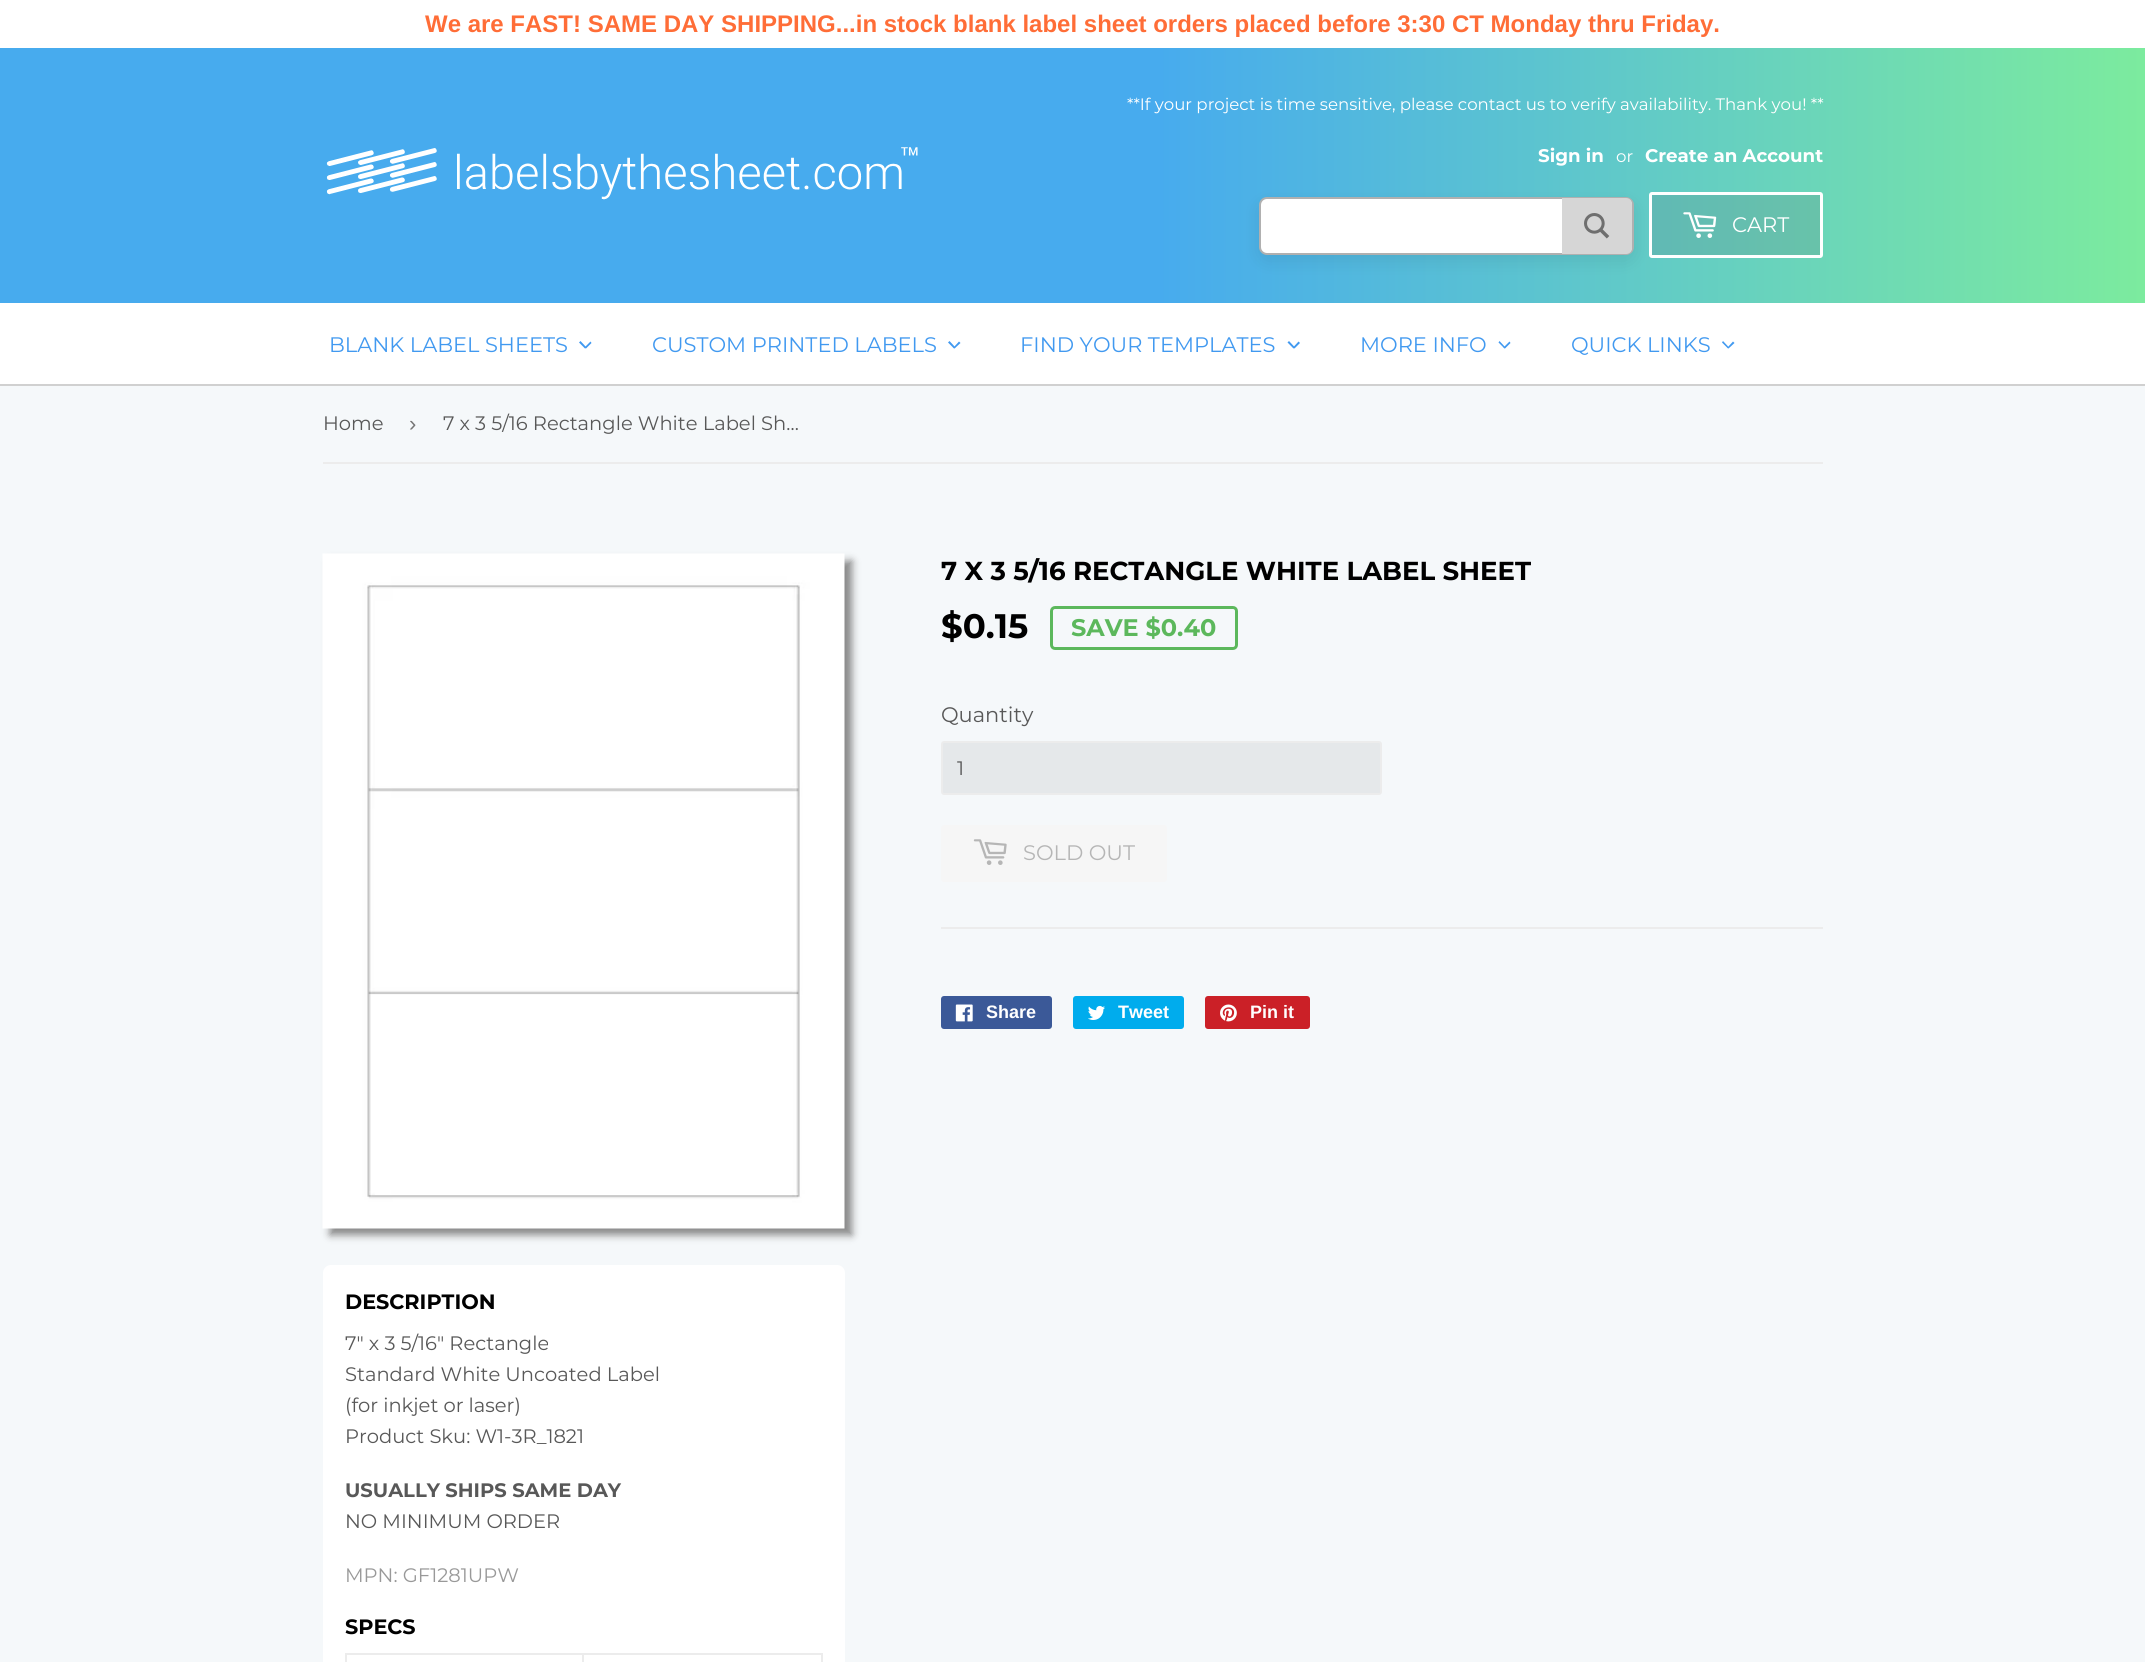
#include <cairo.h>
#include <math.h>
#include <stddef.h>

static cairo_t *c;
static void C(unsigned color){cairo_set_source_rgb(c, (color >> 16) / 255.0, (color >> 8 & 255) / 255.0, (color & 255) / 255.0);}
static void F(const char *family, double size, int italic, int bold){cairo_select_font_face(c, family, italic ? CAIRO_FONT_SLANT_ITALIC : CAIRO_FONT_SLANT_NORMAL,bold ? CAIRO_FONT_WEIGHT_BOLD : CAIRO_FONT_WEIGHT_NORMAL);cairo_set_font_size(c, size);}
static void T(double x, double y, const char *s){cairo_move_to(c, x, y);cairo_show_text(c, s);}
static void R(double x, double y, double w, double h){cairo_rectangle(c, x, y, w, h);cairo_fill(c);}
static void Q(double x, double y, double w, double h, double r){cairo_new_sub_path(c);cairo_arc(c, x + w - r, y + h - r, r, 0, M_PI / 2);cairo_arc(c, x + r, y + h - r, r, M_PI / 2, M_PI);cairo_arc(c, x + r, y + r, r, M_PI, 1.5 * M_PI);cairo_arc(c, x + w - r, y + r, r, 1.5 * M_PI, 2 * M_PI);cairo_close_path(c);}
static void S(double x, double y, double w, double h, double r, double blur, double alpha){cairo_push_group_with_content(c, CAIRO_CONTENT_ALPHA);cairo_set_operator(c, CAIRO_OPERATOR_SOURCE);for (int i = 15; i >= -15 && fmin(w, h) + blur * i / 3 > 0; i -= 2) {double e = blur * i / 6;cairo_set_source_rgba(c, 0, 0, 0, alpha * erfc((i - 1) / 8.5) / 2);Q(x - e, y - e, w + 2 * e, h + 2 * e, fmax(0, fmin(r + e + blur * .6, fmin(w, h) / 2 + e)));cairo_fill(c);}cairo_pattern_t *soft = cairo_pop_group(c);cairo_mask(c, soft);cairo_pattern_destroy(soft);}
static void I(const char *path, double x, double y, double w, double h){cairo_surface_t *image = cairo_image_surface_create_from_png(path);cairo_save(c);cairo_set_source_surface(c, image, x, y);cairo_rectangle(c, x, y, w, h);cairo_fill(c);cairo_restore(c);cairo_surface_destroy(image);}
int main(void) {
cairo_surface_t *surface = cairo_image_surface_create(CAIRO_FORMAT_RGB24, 2145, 1662);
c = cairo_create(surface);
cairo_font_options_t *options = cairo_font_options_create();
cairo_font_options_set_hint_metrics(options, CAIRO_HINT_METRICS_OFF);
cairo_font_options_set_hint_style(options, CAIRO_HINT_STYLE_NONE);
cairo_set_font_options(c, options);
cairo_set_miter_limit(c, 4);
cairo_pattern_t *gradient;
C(0xf5f8fa);
cairo_paint(c);
C(0xffffff);
R(0,0,2145,48);
F("Liberation Sans",24,0,1);
C(0xff6d37);
T(425,32,"We are FAST! SAME DAY SHIPPING...in stock blank label sheet orders placed before 3:30 CT Monday thru Friday.");
gradient = cairo_pattern_create_linear(0,175,2145,175);
cairo_pattern_add_color_stop_rgba(gradient,0,0.278,0.671,0.933,1);
cairo_pattern_add_color_stop_rgba(gradient,.54,0.278,0.671,0.933,1);
cairo_pattern_add_color_stop_rgba(gradient,.84,0.416,0.835,0.729,1);
cairo_pattern_add_color_stop_rgba(gradient,1,0.486,0.922,0.62,1);
cairo_set_source(c,gradient);
cairo_pattern_destroy(gradient);
R(0,48,2145,255);
I("1.png",326,147,592,53);
F("Montserrat",16.6,0,0);
C(0xffffff);
T(1127,110,"**If your project is time sensitive, please contact us to verify availability. Thank you! **");
F("Montserrat",18.25,0,1);
T(1538,162,"Sign in");
F("Montserrat",16.6,0,0);
T(1616,162,"or");
F("Montserrat",18.25,0,1);
T(1645,162,"Create an Account");
cairo_set_source_rgba(c,0.345,0.345,0.345,0.16);
Q(1650.5,193.5,171,63,1.5);
cairo_fill_preserve(c);
C(0xffffff);
cairo_set_line_width(c,3);
cairo_stroke(c);
I("2.png",1683,212,34,26);
F("Montserrat",21,0,0);
T(1732,232,"CART");
C(0x000000);
S(1259,203,375,58,8,9,.08);
C(0xffffff);
Q(1260,198,373,56,7);
cairo_fill_preserve(c);
C(0xb0b0b0);
cairo_set_line_width(c,2);
cairo_stroke(c);
C(0xd6d6d6);
cairo_new_path(c);
cairo_move_to(c,1562,198);
cairo_line_to(c,1626,198);
cairo_curve_to(c,1629.5,198,1632,200.5,1632,204);
cairo_line_to(c,1632,248);
cairo_curve_to(c,1632,251.5,1629.5,254,1626,254);
cairo_line_to(c,1562,254);
cairo_close_path(c);
cairo_fill(c);
I("3.png",1584,213,26,26);
C(0xffffff);
R(0,303,2145,81);
C(0xd0d0d0);
R(0,384,2145,2);
C(0x4199f0);
T(329,352,"BLANK LABEL SHEETS");
cairo_new_path(c);
cairo_move_to(c,590.5,341.5);
cairo_line_to(c,591.5,343);
cairo_line_to(c,586,348.5);
cairo_line_to(c,584.5,347.5);
cairo_close_path(c);
cairo_fill(c);
cairo_new_path(c);
cairo_move_to(c,580.5,341);
cairo_line_to(c,586.5,347.5);
cairo_line_to(c,585,348.5);
cairo_line_to(c,579,342.5);
cairo_close_path(c);
cairo_fill(c);
T(652,352,"CUSTOM PRINTED LABELS");
cairo_new_path(c);
cairo_move_to(c,959,341.5);
cairo_line_to(c,960.5,343);
cairo_line_to(c,954.5,348.5);
cairo_line_to(c,953.5,347.5);
cairo_close_path(c);
cairo_fill(c);
cairo_new_path(c);
cairo_move_to(c,949.5,341);
cairo_line_to(c,955.5,347.5);
cairo_line_to(c,954,348.5);
cairo_line_to(c,948,342.5);
cairo_close_path(c);
cairo_fill(c);
T(1020,352,"FIND YOUR TEMPLATES");
cairo_new_path(c);
cairo_move_to(c,1298.5,341.5);
cairo_line_to(c,1300,343);
cairo_line_to(c,1294.5,348.5);
cairo_line_to(c,1293,347.5);
cairo_close_path(c);
cairo_fill(c);
cairo_new_path(c);
cairo_move_to(c,1289,341);
cairo_line_to(c,1295,347.5);
cairo_line_to(c,1293.5,348.5);
cairo_line_to(c,1287.5,342.5);
cairo_close_path(c);
cairo_fill(c);
T(1360,352,"MORE INFO");
cairo_new_path(c);
cairo_move_to(c,1509.5,341.5);
cairo_line_to(c,1510.5,343);
cairo_line_to(c,1505,348.5);
cairo_line_to(c,1503.5,347.5);
cairo_close_path(c);
cairo_fill(c);
cairo_new_path(c);
cairo_move_to(c,1499.5,341);
cairo_line_to(c,1505.5,347.5);
cairo_line_to(c,1504.5,348.5);
cairo_line_to(c,1498.5,342.5);
cairo_close_path(c);
cairo_fill(c);
T(1571,352,"QUICK LINKS");
cairo_new_path(c);
cairo_move_to(c,1733,341.5);
cairo_line_to(c,1734.5,343);
cairo_line_to(c,1728.5,348.5);
cairo_line_to(c,1727.5,347.5);
cairo_close_path(c);
cairo_fill(c);
cairo_new_path(c);
cairo_move_to(c,1723,341);
cairo_line_to(c,1729,347.5);
cairo_line_to(c,1728,348.5);
cairo_line_to(c,1722,342.5);
cairo_close_path(c);
cairo_fill(c);
C(0xececec);
R(323,462,1500,2);
F("Montserrat",19.5,0,0);
C(0x585858);
T(323,430,"Home");
F("Liberation Sans",22,0,0);
C(0x767676);
T(409,431,"›");
F("Montserrat",19.5,0,0);
C(0x585858);
T(443,430,"7 x 3 5/16 Rectangle White Label Sh…");
F("Montserrat",26,0,1);
C(0x000000);
T(941,580,"7 X 3 5/16 RECTANGLE WHITE LABEL SHEET");
F("Montserrat",34,0,1);
T(941,638,"$0.15");
Q(1051.5,607.5,185,41,3.5);
C(0x5cb85c);
cairo_set_line_width(c,3);
cairo_stroke(c);
F("Montserrat",24,0,1);
T(1071,636,"SAVE $0.40");
F("Montserrat",21,0,0);
C(0x585858);
T(941,722,"Quantity");
C(0xe5e8ea);
Q(942,742,439,52,2);
cairo_fill_preserve(c);
C(0xececec);
cairo_set_line_width(c,2);
cairo_stroke(c);
F("Montserrat",19.5,0,0);
C(0x585858);
T(957,775,"1");
C(0xf6f6f6);
Q(941,825,226,57,3);
cairo_fill(c);
I("4.png",973,839,34,26);
F("Montserrat",21,0,0);
C(0xb6b6b6);
T(1023,860,"SOLD OUT");
C(0xececec);
R(941,927,882,2);
C(0x3b5998);
Q(941,996,111,33,3);
cairo_fill(c);
I("5.png",955,1004,18,18);
F("Liberation Sans",18,0,1);
C(0xffffff);
T(986,1018,"Share");
C(0x00aced);
Q(1073,996,111,33,3);
cairo_fill(c);
I("6.png",1088,1005,17,15);
C(0xffffff);
T(1118,1018,"Tweet");
C(0xcb2027);
Q(1205,996,105,33,3);
cairo_fill(c);
I("7.png",1220,1004,17,18);
C(0xffffff);
T(1250,1018,"Pin it");
C(0x888888);
S(330,561,522,674,0,4,1);
I("8.png",322,553,523,676);
C(0xffffff);
Q(323,1265,522,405,8);
cairo_fill(c);
F("Montserrat",20.75,0,1);
C(0x000000);
T(345,1309,"DESCRIPTION");
F("Montserrat",19.5,0,0);
C(0x585858);
T(345,1350,"7\" x 3 5/16\" Rectangle");
T(345,1381,"Standard White Uncoated Label");
T(345,1412,"(for inkjet or laser)");
T(345,1443,"Product Sku: W1-3R_1821");
F("Montserrat",19.5,0,1);
T(345,1497,"USUALLY SHIPS SAME DAY");
F("Montserrat",19.5,0,0);
T(345,1528,"NO MINIMUM ORDER");
C(0x999999);
T(345,1582,"MPN: GF1281UPW");
F("Montserrat",20.75,0,1);
C(0x000000);
T(345,1634,"SPECS");
C(0xececec);
R(582,1653,240,2);
R(582,1653,2,9);
R(345,1653,239,2);
R(345,1653,2,9);
R(821,1653,2,9);
cairo_surface_write_to_png(surface, "o.png");
cairo_font_options_destroy(options);
cairo_destroy(c);
cairo_surface_destroy(surface);
return 0;
}
